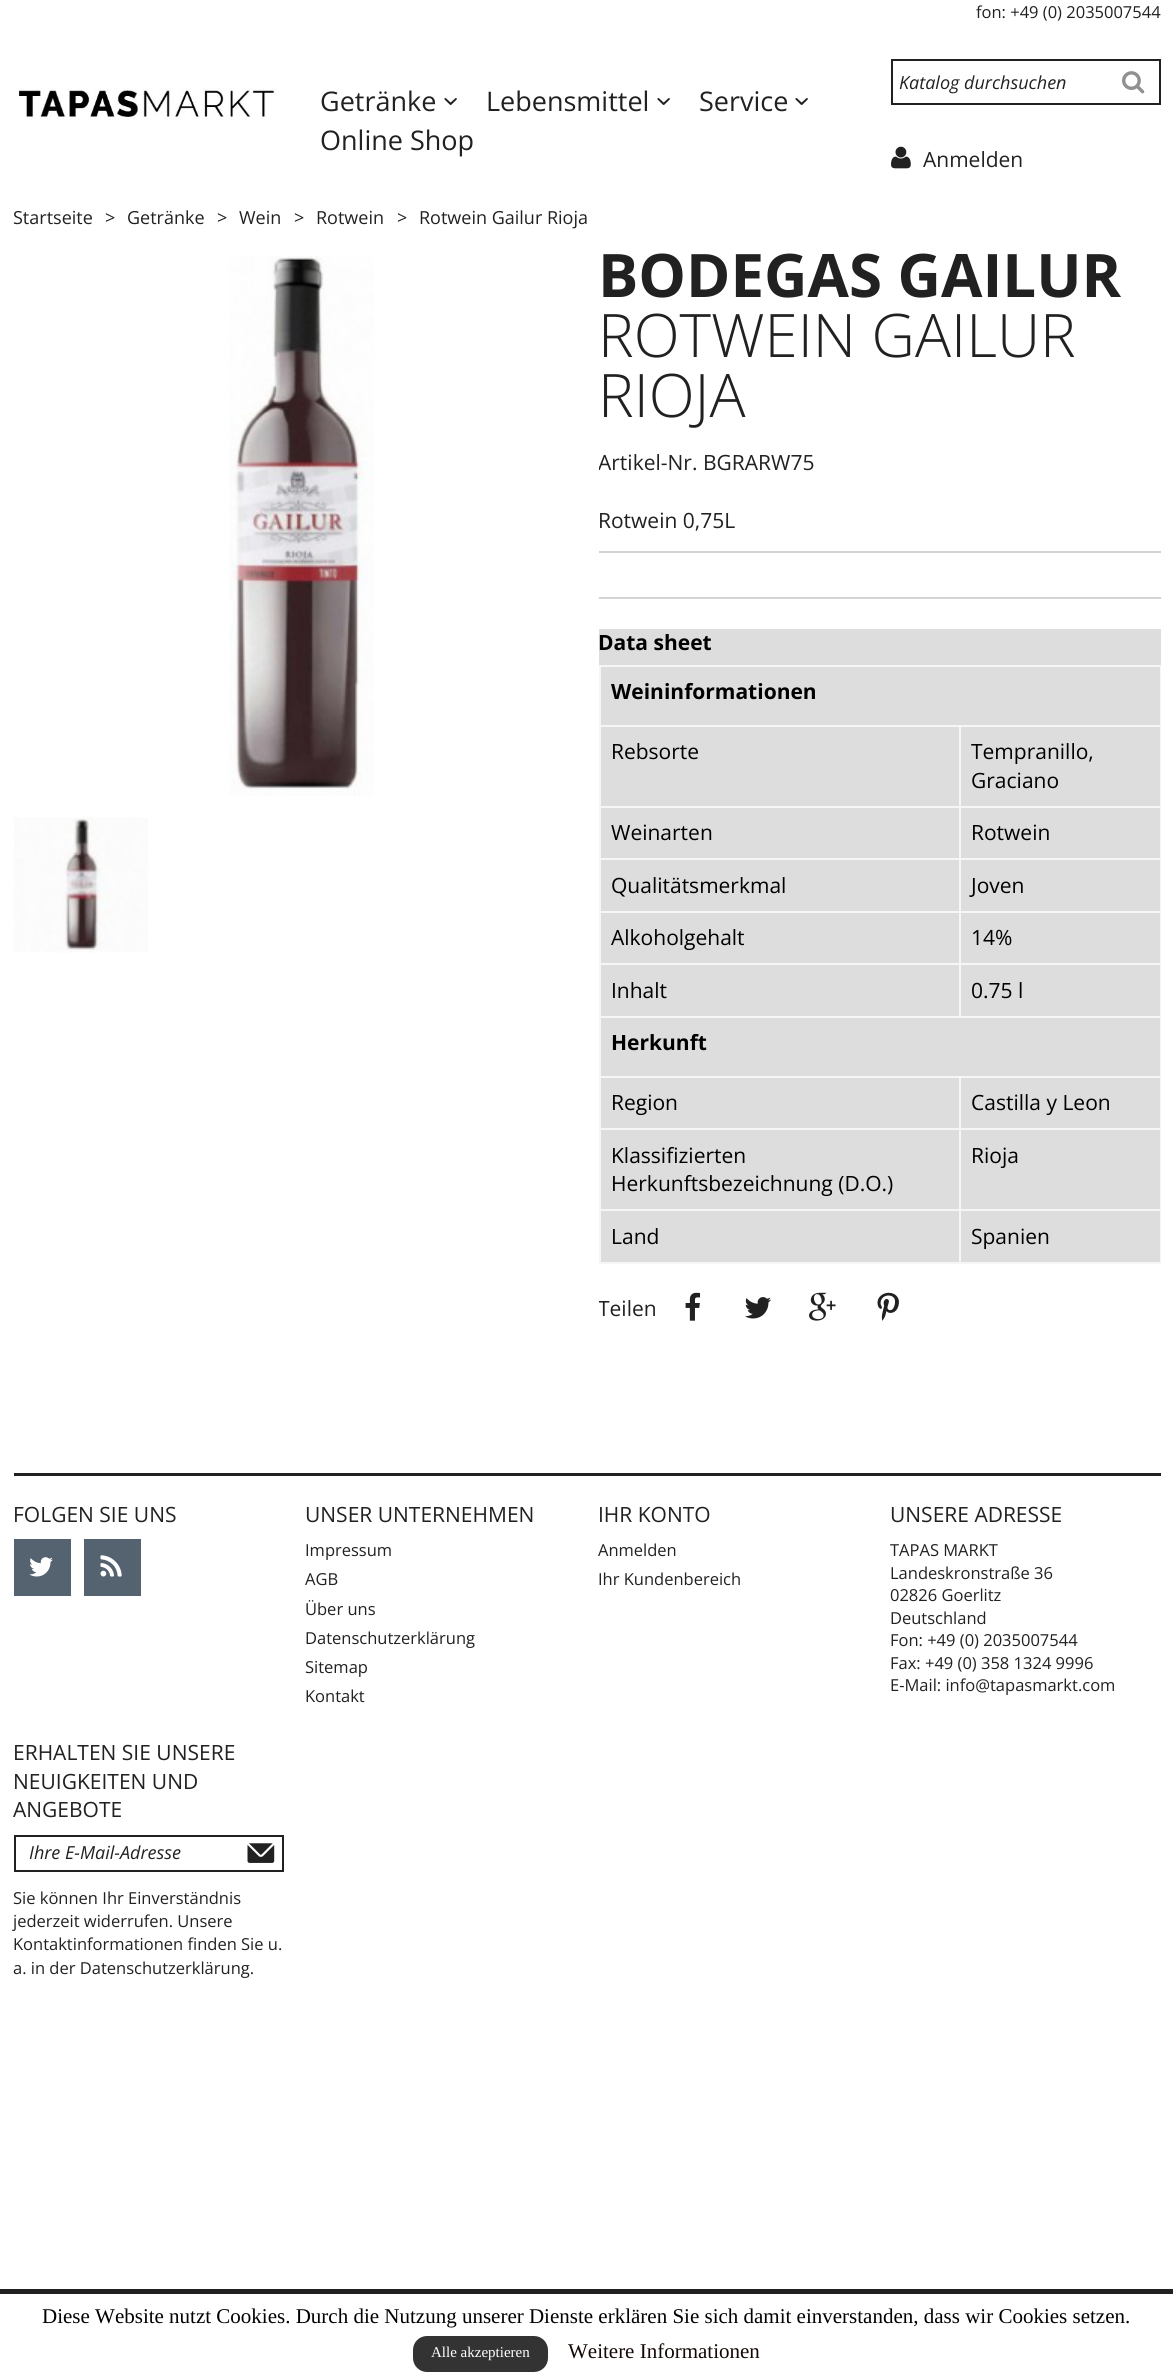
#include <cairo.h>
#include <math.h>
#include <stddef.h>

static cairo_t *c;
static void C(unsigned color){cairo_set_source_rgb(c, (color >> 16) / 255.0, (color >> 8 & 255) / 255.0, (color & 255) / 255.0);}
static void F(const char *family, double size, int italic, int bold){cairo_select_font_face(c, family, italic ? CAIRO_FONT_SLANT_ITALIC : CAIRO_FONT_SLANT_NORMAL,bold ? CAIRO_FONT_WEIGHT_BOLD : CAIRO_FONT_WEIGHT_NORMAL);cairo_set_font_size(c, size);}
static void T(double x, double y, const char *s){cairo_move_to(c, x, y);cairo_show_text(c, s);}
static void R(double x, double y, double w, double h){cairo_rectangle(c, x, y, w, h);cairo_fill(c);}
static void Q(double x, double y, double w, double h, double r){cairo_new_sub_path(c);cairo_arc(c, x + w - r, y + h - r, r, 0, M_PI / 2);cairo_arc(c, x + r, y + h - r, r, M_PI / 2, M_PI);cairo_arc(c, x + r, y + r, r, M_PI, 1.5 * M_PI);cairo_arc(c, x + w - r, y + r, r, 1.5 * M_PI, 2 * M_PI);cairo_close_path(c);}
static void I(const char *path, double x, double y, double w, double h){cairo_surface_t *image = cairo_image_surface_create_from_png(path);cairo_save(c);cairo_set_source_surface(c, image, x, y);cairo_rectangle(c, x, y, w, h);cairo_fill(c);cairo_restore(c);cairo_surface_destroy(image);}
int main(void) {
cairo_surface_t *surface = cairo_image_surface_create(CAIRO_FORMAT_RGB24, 1173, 2376);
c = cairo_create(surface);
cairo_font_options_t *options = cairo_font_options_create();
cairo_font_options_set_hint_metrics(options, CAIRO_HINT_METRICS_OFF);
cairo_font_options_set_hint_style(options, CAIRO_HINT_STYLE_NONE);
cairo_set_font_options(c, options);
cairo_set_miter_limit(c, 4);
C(0xffffff);
cairo_paint(c);
F("Open Sans",16.5,0,0);
C(0x212121);
T(976,18,"fon: +49 (0) 2035007544");
I("1.png",18,88,258,32);
cairo_rectangle(c,892,60,268,44);
cairo_stroke(c);
F("Open Sans",18,1,0);
T(899,89,"Katalog durchsuchen");
I("2.png",1122,71,23,23);
F("Open Sans",27,0,0);
T(320,111,"Getränke");
I("3.png",444,98,13,7);
T(486,111,"Lebensmittel");
I("3.png",657,98,13,7);
T(699,111,"Service");
I("3.png",795,98,13,7);
T(320,150,"Online Shop");
I("4.png",891,146,20,23);
F("Open Sans",21,0,0);
T(923,167,"Anmelden");
F("Open Sans",18,0,0);
T(13,224,"Startseite");
T(105,224,">");
T(127,224,"Getränke");
T(217,224,">");
T(239,224,"Wein");
T(294,224,">");
T(316,224,"Rotwein");
T(397,224,">");
T(419,224,"Rotwein Gailur Rioja");
I("5.png",229,256,145,540);
I("6.png",14,817,134,136);
F("Open Sans",60,0,1);
T(598,297,"BODEGAS GAILUR");
F("Open Sans Light",60,0,0);
T(598,357,"ROTWEIN GAILUR");
T(598,417,"RIOJA");
cairo_save(c);
cairo_rectangle(c,599,245,562,1123);
cairo_clip(c);
F("Open Sans",21,0,0);
T(598,470,"Artikel-Nr.");
cairo_restore(c);
F("Open Sans",21,0,0);
T(703,470,"BGRARW75");
T(598,528,"Rotwein 0,75L");
C(0xd3d3d3);
R(599,551,562,2);
R(599,597,562,2);
C(0xdddddd);
R(599,629,562,633);
F("Open Sans",21,0,1);
C(0x000000);
T(598,650,"Data sheet");
C(0xf6f6f6);
R(599,665,562,2);
R(1160,665,1,598);
R(599,1262,562,2);
R(599,665,2,598);
C(0x000000);
T(611,699,"Weininformationen");
C(0xf6f6f6);
R(959,725,202,2);
R(959,806,202,2);
R(959,858,202,2);
R(959,911,202,2);
R(959,963,202,2);
R(599,1016,562,2);
R(959,963,2,54);
R(599,963,361,2);
R(959,911,2,54);
R(599,911,361,2);
R(959,858,2,54);
R(599,858,361,2);
R(959,806,2,54);
R(599,806,361,2);
R(959,725,2,82);
R(599,725,361,2);
F("Open Sans",21,0,0);
C(0x000000);
T(611,759,"Rebsorte");
T(971,759,"Tempranillo,");
T(971,788,"Graciano");
T(611,840,"Weinarten");
T(971,840,"Rotwein");
T(611,893,"Qualitätsmerkmal");
T(971,893,"Joven");
T(611,945,"Alkoholgehalt");
T(971,945,"14%");
T(611,998,"Inhalt");
T(971,998,"0.75 l");
F("Open Sans",21,0,1);
T(611,1050,"Herkunft");
C(0xf6f6f6);
R(959,1076,202,2);
R(959,1128,202,2);
R(959,1209,202,2);
R(959,1209,2,54);
R(599,1209,361,2);
R(959,1128,2,83);
R(599,1128,361,2);
R(959,1076,2,54);
R(599,1076,361,2);
F("Open Sans",21,0,0);
C(0x000000);
T(611,1110,"Region");
T(971,1110,"Castilla y Leon");
T(611,1163,"Klassifizierten");
T(611,1191,"Herkunftsbezeichnung (D.O.)");
T(971,1163,"Rioja");
T(611,1244,"Land");
T(971,1244,"Spanien");
cairo_save(c);
cairo_rectangle(c,599,245,562,1123);
cairo_clip(c);
C(0x212121);
T(598,1316,"Teilen");
cairo_restore(c);
I("7.png",685,1292,16,29);
I("8.png",745,1297,26,22);
I("9.png",809,1292,27,29);
I("10.png",877,1292,22,29);
C(0x212121);
R(14,1473,1147,3);
T(13,1522,"FOLGEN SIE UNS");
C(0x556270);
R(14,1539,57,57);
I("11.png",29,1557,24,20);
R(84,1539,57,57);
I("12.png",100,1555,22,22);
C(0x212121);
T(305,1522,"UNSER UNTERNEHMEN");
F("Open Sans",16.5,0,0);
T(305,1556,"Impressum");
T(305,1585,"AGB");
T(305,1615,"Über uns");
T(305,1644,"Datenschutzerklärung");
T(305,1673,"Sitemap");
T(305,1702,"Kontakt");
F("Open Sans",21,0,0);
T(598,1522,"IHR KONTO");
F("Open Sans",16.5,0,0);
T(598,1556,"Anmelden");
T(598,1585,"Ihr Kundenbereich");
F("Open Sans",21,0,0);
T(890,1522,"UNSERE ADRESSE");
F("Open Sans",16.5,0,0);
T(890,1556,"TAPAS MARKT");
T(890,1579,"Landeskronstraße 36");
T(890,1601,"02826 Goerlitz");
T(890,1624,"Deutschland");
T(890,1646,"Fon: +49 (0) 2035007544");
T(890,1669,"Fax: +49 (0) 358 1324 9996");
T(890,1691,"E-Mail: info@tapasmarkt.com");
F("Open Sans",21,0,0);
T(13,1760,"ERHALTEN SIE UNSERE");
T(13,1789,"NEUIGKEITEN UND");
T(13,1817,"ANGEBOTE");
cairo_rectangle(c,15,1836,268,35);
cairo_stroke(c);
F("Open Sans",18,1,0);
T(29,1859,"Ihre E-Mail-Adresse");
I("13.png",247,1843,28,20);
F("Open Sans",16.5,0,0);
T(13,1904,"Sie können Ihr Einverständnis");
T(13,1927,"jederzeit widerrufen. Unsere");
T(13,1950,"Kontaktinformationen finden Sie u.");
T(13,1974,"a. in der Datenschutzerklärung.");
R(0,2289,1173,5);
F("Liberation Serif",21,0,0);
C(0x000000);
T(42,2323,"Diese Website nutzt Cookies. Durch die Nutzung unserer Dienste erklären Sie sich damit einverstanden, dass wir Cookies setzen.");
C(0x333333);
Q(413,2336,135,36,14);
cairo_fill(c);
F("Liberation Serif",15,0,0);
C(0xffffff);
T(431,2357,"Alle akzeptieren");
F("Liberation Serif",21,0,0);
C(0x140805);
T(568,2358,"Weitere Informationen");
cairo_surface_write_to_png(surface, "o.png");
cairo_font_options_destroy(options);
cairo_destroy(c);
cairo_surface_destroy(surface);
return 0;
}
